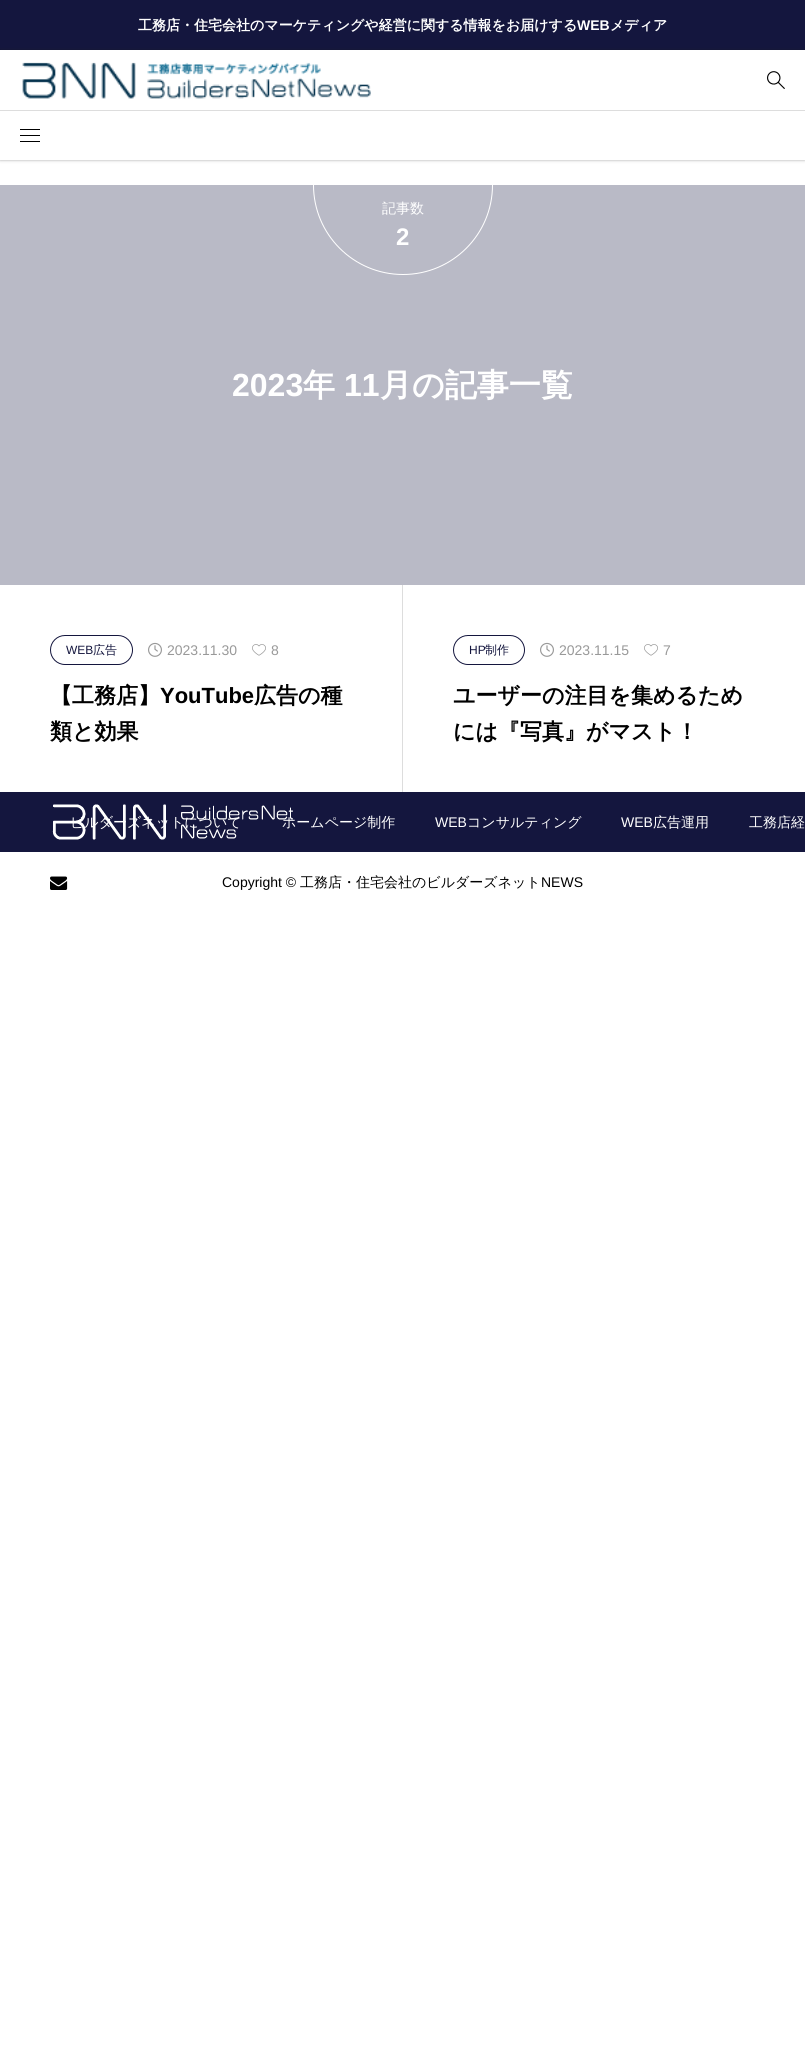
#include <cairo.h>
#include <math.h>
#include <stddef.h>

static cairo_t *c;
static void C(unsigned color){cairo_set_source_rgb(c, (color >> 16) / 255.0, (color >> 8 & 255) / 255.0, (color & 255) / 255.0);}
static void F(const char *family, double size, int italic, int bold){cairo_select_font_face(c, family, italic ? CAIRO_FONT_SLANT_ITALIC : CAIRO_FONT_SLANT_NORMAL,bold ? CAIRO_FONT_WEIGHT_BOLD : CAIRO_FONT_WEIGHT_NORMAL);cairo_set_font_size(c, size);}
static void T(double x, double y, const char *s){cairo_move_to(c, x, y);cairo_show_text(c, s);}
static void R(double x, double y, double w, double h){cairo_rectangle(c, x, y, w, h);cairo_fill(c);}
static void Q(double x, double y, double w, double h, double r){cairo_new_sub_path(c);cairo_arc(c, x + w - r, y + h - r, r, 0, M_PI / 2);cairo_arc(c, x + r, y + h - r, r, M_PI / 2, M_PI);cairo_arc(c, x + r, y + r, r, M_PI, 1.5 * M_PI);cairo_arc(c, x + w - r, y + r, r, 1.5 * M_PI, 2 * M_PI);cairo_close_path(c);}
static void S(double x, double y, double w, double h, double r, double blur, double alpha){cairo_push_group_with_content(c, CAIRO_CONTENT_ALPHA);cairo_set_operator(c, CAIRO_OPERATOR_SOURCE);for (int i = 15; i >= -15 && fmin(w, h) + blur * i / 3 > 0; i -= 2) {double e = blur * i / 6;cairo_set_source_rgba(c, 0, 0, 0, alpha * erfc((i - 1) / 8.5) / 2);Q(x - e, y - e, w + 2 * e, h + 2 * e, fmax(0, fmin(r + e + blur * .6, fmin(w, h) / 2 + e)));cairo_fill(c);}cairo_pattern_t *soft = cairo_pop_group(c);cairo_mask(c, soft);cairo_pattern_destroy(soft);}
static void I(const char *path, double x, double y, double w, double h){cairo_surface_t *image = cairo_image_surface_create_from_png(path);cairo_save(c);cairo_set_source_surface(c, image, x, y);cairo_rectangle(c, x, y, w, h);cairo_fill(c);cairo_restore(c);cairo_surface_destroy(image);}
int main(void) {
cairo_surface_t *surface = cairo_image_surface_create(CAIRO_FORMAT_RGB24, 805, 2065);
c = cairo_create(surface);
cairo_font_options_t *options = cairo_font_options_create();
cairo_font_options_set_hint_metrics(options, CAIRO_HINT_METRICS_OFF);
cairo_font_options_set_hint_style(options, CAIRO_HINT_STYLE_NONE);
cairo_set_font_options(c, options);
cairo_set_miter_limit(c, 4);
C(0xffffff);
cairo_paint(c);
C(0x14163e);
R(0,0,805,50);
F("WenQuanYi Zen Hei",14,0,1);
C(0xffffff);
T(138,30,"工務店・住宅会社のマーケティングや経営に関する情報をお届けする");
F("Liberation Sans",14,0,1);
T(577,30,"WEB");
F("WenQuanYi Zen Hei",14,0,1);
T(610,30,"メディア");
C(0xb9bac6);
R(0,185,805,400);
cairo_save(c);
cairo_rectangle(c,0,185,805,400);
cairo_clip(c);
cairo_arc(c,403,185,89.5,0,2 * M_PI);
C(0xffffff);
cairo_set_line_width(c,1);
cairo_stroke(c);
cairo_restore(c);
cairo_save(c);
cairo_set_fill_rule(c,CAIRO_FILL_RULE_EVEN_ODD);
cairo_new_path(c);
cairo_move_to(c,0,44);
cairo_line_to(c,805,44);
cairo_line_to(c,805,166);
cairo_line_to(c,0,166);
cairo_close_path(c);
cairo_move_to(c,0,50);
cairo_line_to(c,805,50);
cairo_line_to(c,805,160);
cairo_line_to(c,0,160);
cairo_close_path(c);
cairo_clip(c);
C(0x191919);
S(0,50,805,110,0,1.5,.4);
cairo_restore(c);
I("1.png",22,62,349,37);
I("2.png",767,71,18,18);
C(0xdddddd);
R(0,110,805,1);
C(0x000000);
R(20,129,20,1);
R(20,135,20,1);
R(20,141,20,1);
F("WenQuanYi Zen Hei Medium",14,0,0);
C(0xffffff);
T(382,213,"記事数");
F("Liberation Sans",24,0,1);
T(396,245,"2");
F("Liberation Sans",32,0,1);
T(232,396,"2023");
F("WenQuanYi Zen Hei",32,0,1);
T(303,396,"年");
F("Liberation Sans",32,0,1);
T(344,396,"11");
F("WenQuanYi Zen Hei",32,0,1);
T(380,396,"月の記事一覧");
C(0xdddddd);
R(402,585,1,207);
Q(50.5,635.5,82,29,14.5);
C(0x14163e);
cairo_set_line_width(c,1);
cairo_stroke(c);
F("Liberation Sans",12,0,0);
T(66,654,"WEB");
F("WenQuanYi Zen Hei Medium",12,0,0);
T(93,654,"広告");
I("3.png",148,642,14,15);
F("Liberation Sans",14,0,0);
C(0x999999);
T(167,655,"2023.11.30");
I("4.png",252,644,14,12);
T(271,655,"8");
F("WenQuanYi Zen Hei",22,0,1);
C(0x000000);
T(50,703,"【工務店】");
F("Liberation Sans",22,0,1);
T(160,703,"YouTube");
F("WenQuanYi Zen Hei",22,0,1);
T(254,703,"広告の種");
T(50,739,"類と効果");
Q(453.5,635.5,71,29,14.5);
C(0x14163e);
cairo_stroke(c);
F("Liberation Sans",12,0,0);
T(469,654,"HP");
F("WenQuanYi Zen Hei Medium",12,0,0);
T(485,654,"制作");
I("3.png",540,642,14,15);
F("Liberation Sans",14,0,0);
C(0x999999);
T(559,655,"2023.11.15");
I("4.png",644,644,14,12);
T(663,655,"7");
F("WenQuanYi Zen Hei",22,0,1);
C(0x000000);
T(453,703,"ユーザーの注目を集めるため");
T(453,739,"には『写真』がマスト！");
C(0x14163e);
R(0,792,805,60);
F("WenQuanYi Zen Hei Medium",14,0,0);
C(0xffffff);
T(70,827,"ビルダーズネットについて");
T(282,827,"ホームページ制作");
I("5.png",52,804,241,36);
F("Liberation Sans",14,0,0);
T(435,827,"WEB");
F("WenQuanYi Zen Hei Medium",14,0,0);
T(467,827,"コンサルティング");
F("Liberation Sans",14,0,0);
T(621,827,"WEB");
F("WenQuanYi Zen Hei Medium",14,0,0);
T(653,827,"広告運用");
T(749,827,"工務店経");
I("6.png",50,876,18,14);
F("Liberation Sans",14,0,0);
C(0x000000);
T(222,887,"Copyright ©");
F("WenQuanYi Zen Hei Medium",14,0,0);
T(300,887,"工務店・住宅会社のビルダーズネット");
F("Liberation Sans",14,0,0);
T(541,887,"NEWS");
cairo_surface_write_to_png(surface, "o.png");
cairo_font_options_destroy(options);
cairo_destroy(c);
cairo_surface_destroy(surface);
return 0;
}
